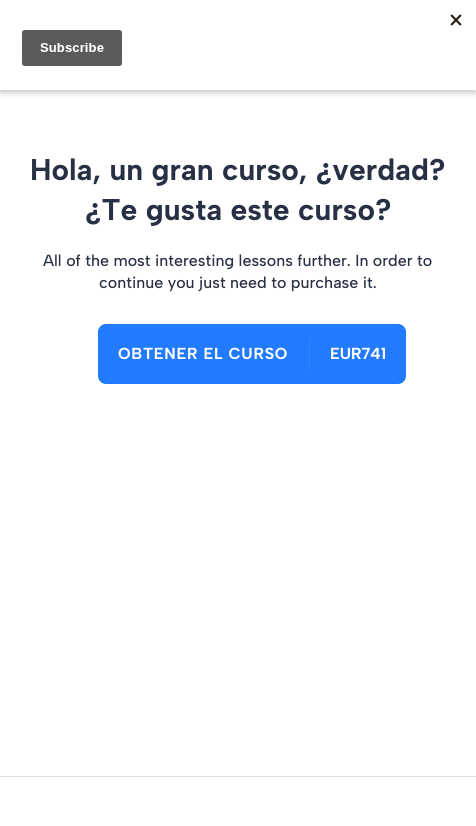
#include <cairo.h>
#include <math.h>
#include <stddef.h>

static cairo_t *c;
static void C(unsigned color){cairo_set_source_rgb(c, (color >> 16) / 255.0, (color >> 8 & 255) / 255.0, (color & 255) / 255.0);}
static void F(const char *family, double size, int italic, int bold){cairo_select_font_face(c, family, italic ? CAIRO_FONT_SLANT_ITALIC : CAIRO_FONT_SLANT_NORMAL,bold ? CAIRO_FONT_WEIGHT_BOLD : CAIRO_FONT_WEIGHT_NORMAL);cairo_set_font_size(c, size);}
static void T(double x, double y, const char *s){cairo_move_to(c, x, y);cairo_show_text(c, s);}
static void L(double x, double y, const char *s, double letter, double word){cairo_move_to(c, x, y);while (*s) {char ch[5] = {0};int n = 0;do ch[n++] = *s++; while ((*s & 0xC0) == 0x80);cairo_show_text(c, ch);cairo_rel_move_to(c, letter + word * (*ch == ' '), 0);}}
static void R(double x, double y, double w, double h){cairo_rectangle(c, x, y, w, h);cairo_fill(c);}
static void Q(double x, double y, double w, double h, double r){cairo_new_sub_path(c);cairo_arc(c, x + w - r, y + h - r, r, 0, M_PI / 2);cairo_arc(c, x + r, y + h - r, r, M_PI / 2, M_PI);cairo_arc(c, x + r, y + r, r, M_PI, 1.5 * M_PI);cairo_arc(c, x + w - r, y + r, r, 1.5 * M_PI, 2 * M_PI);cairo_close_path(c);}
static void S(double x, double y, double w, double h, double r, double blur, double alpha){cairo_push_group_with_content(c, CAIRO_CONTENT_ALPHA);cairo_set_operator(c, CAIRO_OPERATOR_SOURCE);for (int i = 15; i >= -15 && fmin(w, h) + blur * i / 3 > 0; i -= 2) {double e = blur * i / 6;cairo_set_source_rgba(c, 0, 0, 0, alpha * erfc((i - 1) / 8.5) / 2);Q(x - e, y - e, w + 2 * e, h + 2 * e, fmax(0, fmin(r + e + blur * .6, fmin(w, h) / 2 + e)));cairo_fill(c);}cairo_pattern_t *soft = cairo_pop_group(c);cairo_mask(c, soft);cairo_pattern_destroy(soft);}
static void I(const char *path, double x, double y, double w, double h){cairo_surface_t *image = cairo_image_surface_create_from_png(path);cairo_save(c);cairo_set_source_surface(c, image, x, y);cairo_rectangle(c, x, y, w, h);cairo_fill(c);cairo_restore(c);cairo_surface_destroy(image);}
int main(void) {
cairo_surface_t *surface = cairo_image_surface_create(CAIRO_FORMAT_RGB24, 476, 826);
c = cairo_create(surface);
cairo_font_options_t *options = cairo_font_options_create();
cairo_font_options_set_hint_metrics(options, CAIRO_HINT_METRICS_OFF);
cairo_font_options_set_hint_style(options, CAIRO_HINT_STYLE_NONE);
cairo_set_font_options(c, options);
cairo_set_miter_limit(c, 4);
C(0xffffff);
cairo_paint(c);
C(0x000000);
S(0,3,476,90,0,3,.2);
C(0xffffff);
R(0,0,476,90);
I("1.png",22,14,440,52);
F("Albert Sans",30,0,1);
C(0x273044);
T(30,180,"Hola, un gran curso, ¿verdad?");
T(85,220,"¿Te gusta este curso?");
F("Albert Sans Medium",16,0,0);
T(43,266,"All of the most interesting lessons further. In order to");
T(99,288,"continue you just need to purchase it.");
C(0x227aff);
Q(98,324,308,60,8);
cairo_fill(c);
F("Albert Sans",16,0,1);
C(0xffffff);
L(118,359,"OBTENER EL CURSO",.75,0);
C(0x3887ff);
R(309,339,1,30);
C(0xffffff);
T(330,359,"EUR741");
C(0xdbe0e9);
R(0,776,476,1);
cairo_surface_write_to_png(surface, "o.png");
cairo_font_options_destroy(options);
cairo_destroy(c);
cairo_surface_destroy(surface);
return 0;
}
